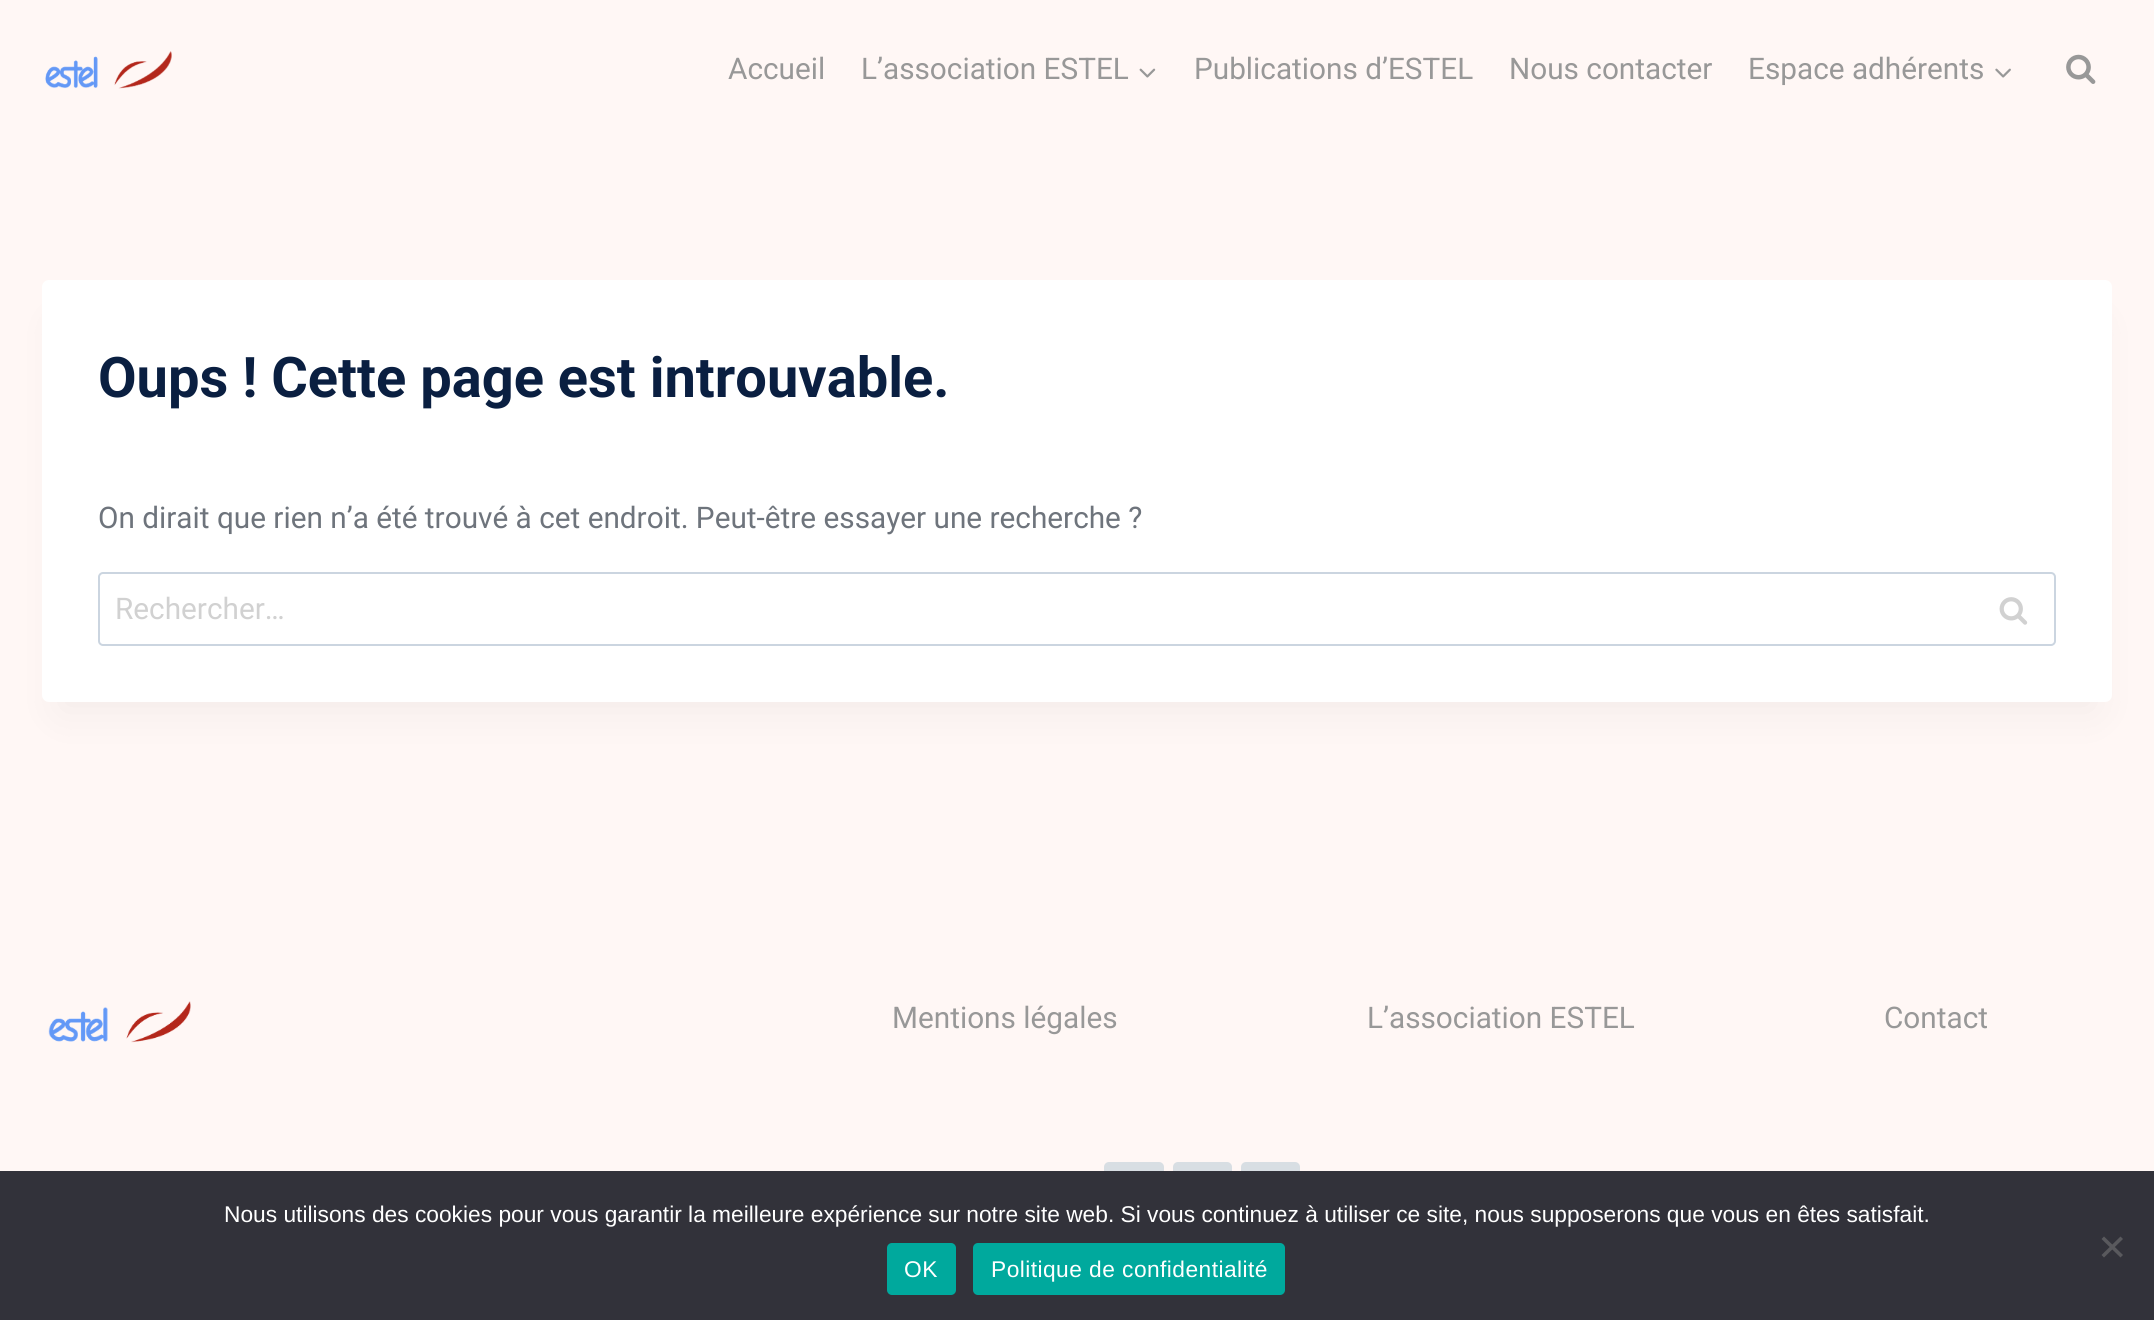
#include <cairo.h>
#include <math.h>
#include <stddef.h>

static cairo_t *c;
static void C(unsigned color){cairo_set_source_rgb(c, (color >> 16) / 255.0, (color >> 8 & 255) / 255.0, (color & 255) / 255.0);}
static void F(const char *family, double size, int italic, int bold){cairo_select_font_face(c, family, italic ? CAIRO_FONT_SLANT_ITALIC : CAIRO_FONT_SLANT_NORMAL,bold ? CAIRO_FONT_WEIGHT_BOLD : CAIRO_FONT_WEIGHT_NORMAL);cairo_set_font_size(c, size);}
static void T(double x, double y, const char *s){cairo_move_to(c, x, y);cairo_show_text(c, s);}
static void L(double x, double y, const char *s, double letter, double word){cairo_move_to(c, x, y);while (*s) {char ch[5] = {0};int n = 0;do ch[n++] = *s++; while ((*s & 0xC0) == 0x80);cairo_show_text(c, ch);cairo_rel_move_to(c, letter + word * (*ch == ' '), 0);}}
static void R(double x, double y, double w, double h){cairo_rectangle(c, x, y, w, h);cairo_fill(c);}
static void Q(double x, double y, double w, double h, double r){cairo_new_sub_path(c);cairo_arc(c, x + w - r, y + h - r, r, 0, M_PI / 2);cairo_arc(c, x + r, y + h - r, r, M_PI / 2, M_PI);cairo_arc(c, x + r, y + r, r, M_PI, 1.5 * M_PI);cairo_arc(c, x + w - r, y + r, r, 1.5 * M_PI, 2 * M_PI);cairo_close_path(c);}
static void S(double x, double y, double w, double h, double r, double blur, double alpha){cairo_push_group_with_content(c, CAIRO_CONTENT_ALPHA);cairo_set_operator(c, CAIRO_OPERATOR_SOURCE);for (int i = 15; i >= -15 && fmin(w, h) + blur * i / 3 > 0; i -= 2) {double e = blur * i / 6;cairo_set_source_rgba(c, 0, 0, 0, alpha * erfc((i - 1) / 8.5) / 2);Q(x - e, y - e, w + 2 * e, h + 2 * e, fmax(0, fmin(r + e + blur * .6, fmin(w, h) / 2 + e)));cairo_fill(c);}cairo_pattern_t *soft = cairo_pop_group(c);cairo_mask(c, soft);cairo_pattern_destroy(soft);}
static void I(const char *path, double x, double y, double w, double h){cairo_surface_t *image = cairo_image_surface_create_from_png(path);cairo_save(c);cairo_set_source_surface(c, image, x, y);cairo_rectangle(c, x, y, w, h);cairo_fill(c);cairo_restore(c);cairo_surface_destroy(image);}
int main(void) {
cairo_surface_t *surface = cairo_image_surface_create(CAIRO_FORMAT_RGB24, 2154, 1320);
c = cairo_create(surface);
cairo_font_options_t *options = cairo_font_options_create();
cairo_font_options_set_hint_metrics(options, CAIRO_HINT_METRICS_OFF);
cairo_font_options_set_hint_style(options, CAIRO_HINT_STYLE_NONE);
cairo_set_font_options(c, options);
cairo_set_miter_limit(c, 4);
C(0xfff7f5);
cairo_paint(c);
I("1.png",45,51,127,38);
F("Roboto",29.75,0,0);
C(0x989898);
T(728,79,"Accueil");
T(861,79,"L’association ESTEL");
I("2.png",1139,68,17,10);
T(1194,79,"Publications d’ESTEL");
T(1509,79,"Nous contacter");
T(1748,79,"Espace adhérents");
I("3.png",1995,68,16,10);
I("4.png",2066,54,30,30);
C(0x000000);
S(60,324,2035,387,0,22,.05);
C(0xffffff);
Q(42,280,2070,422,7);
cairo_fill(c);
F("Roboto",56,0,1);
C(0x0a1f41);
T(98,397,"Oups ! Cette page est introuvable.");
F("Roboto",29.75,0,0);
C(0x6e747c);
T(98,528,"On dirait que rien n’a été trouvé à cet endroit. Peut-être essayer une recherche ?");
Q(99,573,1956,72,4);
C(0xcbd5e0);
cairo_stroke(c);
C(0xd1d1d1);
T(115,619,"Rechercher…");
I("5.png",1999,597,29,28);
I("6.png",48,1001,143,42);
C(0x989898);
T(892,1028,"Mentions légales");
T(1367,1028,"L’association ESTEL");
T(1884,1028,"Contact");
C(0xd8dee3);
Q(1104,1162,60,60,5);
cairo_fill(c);
Q(1173,1162,59,60,5);
cairo_fill(c);
Q(1241,1162,59,60,5);
cairo_fill(c);
C(0x32323a);
R(0,1171,2154,149);
F("Liberation Sans",22.75,0,0);
C(0xffffff);
T(224,1222,"Nous utilisons des cookies pour vous garantir la meilleure expérience sur notre site web. Si vous continuez à utiliser ce site, nous supposerons que vous en êtes satisfait.");
C(0x59595d);
cairo_new_path(c);
cairo_move_to(c,2120.5,1236.5);
cairo_line_to(c,2123,1239);
cairo_line_to(c,2104,1257.5);
cairo_line_to(c,2101.5,1255);
cairo_close_path(c);
cairo_fill(c);
cairo_new_path(c);
cairo_move_to(c,2101.5,1239);
cairo_line_to(c,2104,1236.5);
cairo_line_to(c,2123,1255);
cairo_line_to(c,2120.5,1257.5);
cairo_close_path(c);
cairo_fill(c);
C(0x00a99d);
Q(887,1243,69,52,5);
cairo_fill(c);
C(0xffffff);
L(904,1277,"OK",.45,0);
C(0x00a99d);
Q(973,1243,312,52,5);
cairo_fill(c);
C(0xffffff);
L(991,1277,"Politique de confidentialité",.45,0);
cairo_surface_write_to_png(surface, "o.png");
cairo_font_options_destroy(options);
cairo_destroy(c);
cairo_surface_destroy(surface);
return 0;
}
